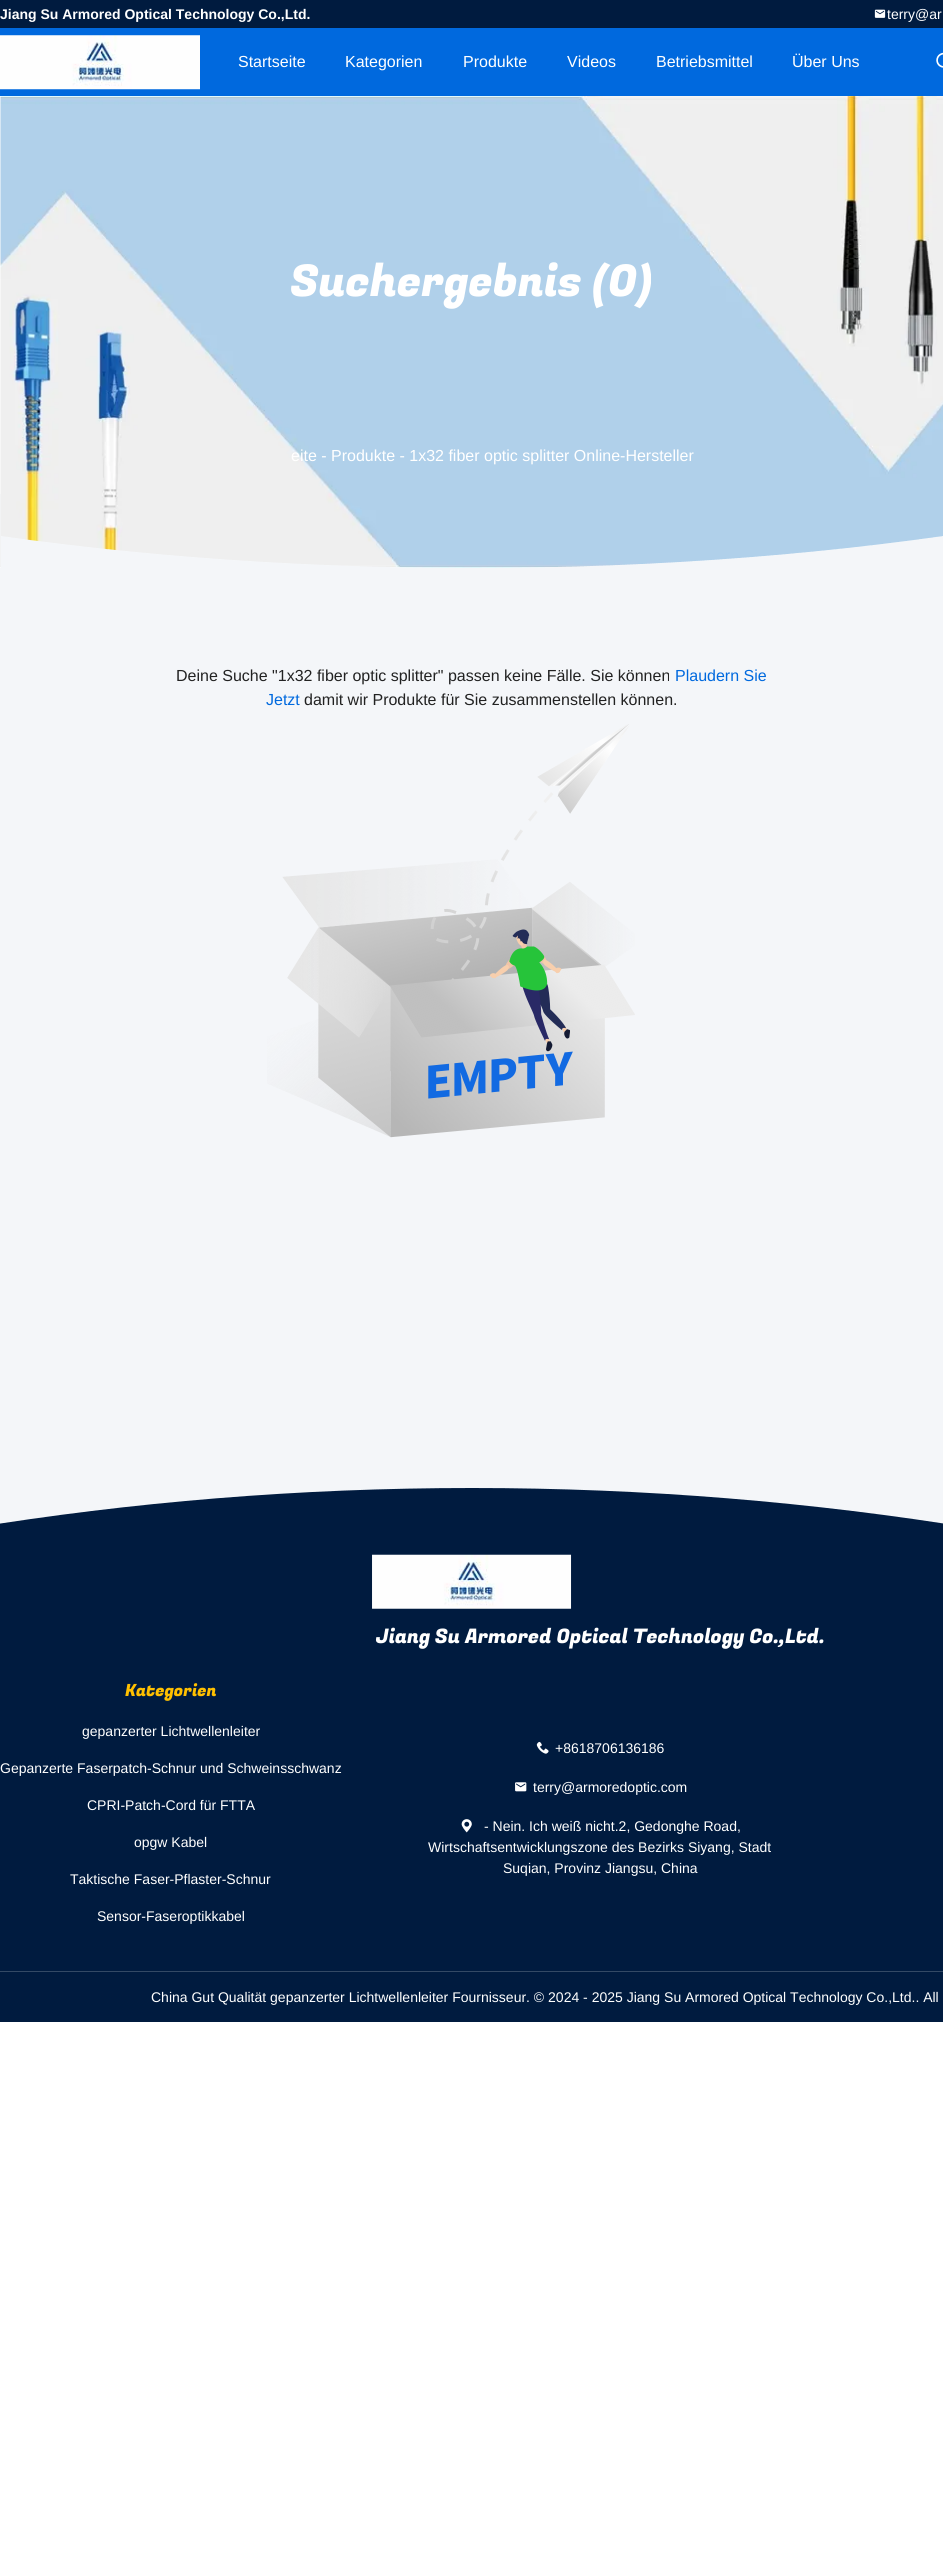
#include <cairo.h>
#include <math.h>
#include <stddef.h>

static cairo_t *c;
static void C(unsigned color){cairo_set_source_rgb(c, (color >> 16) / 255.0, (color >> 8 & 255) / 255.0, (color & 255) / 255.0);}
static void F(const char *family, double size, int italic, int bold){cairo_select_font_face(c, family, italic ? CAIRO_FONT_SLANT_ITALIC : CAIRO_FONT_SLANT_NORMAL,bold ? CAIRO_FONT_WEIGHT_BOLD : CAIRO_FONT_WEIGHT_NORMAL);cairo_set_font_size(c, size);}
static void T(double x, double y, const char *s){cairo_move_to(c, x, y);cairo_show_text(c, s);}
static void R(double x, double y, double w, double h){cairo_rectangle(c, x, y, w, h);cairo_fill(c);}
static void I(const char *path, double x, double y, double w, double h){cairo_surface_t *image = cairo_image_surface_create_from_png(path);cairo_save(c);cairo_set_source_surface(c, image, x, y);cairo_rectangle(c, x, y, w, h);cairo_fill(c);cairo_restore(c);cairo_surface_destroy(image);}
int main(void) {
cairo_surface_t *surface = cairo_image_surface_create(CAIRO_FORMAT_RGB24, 943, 2572);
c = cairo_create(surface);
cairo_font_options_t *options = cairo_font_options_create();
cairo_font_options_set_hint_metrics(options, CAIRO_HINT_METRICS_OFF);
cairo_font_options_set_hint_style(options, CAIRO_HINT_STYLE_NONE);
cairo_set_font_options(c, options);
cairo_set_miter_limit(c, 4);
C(0xffffff);
cairo_paint(c);
C(0x001b3f);
R(0,0,943,28);
F("Liberation Sans",14,0,1);
C(0xffffff);
T(0,19,"Jiang Su Armored Optical Technology Co.,Ltd.");
I("1.png",874,9,12,9);
F("Liberation Sans",14,0,0);
T(887,19,"terry@ar");
C(0x0069de);
R(0,28,943,68);
I("2.png",0,35,200,55);
F("Liberation Sans",16,0,0);
C(0xffffff);
T(238,67,"Startseite");
T(345,67,"Kategorien");
T(463,67,"Produkte");
T(567,67,"Videos");
T(656,67,"Betriebsmittel");
T(792,67,"Über Uns");
I("3.png",936,52,7,16);
C(0xf4f6f9);
R(0,494,943,1030);
I("4.png",0,96,943,472);
F("Fugaz One",44,0,0);
C(0xffffff);
T(290,296,"Suchergebnis (0)");
F("Liberation Sans",16,0,0);
T(291,461,"eite - Produkte - 1x32 fiber optic splitter Online-Hersteller");
I("5.png",1,536,942,32);
C(0x222222);
T(176,681,"Deine Suche \"1x32 fiber optic splitter\" passen keine Fälle. Sie können");
C(0x0069de);
T(675,681,"Plaudern Sie");
T(266,705,"Jetzt");
C(0x222222);
T(304,705,"damit wir Produkte für Sie zusammenstellen können.");
I("6.png",267,724,368,414);
cairo_save(c);
cairo_rectangle(c,0,1488,943,534);
cairo_clip(c);
C(0x001b3f);
cairo_new_path(c);
cairo_move_to(c,472,1488);
cairo_curve_to(c,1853,1488,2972,2383,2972,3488);
cairo_line_to(c,-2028,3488);
cairo_curve_to(c,-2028,2383,-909,1488,472,1488);
cairo_close_path(c);
cairo_fill(c);
cairo_restore(c);
I("7.png",372,1554,200,55);
F("Fugaz One",20,0,0);
C(0xffffff);
T(376,1643,"Jiang Su Armored Optical Technology Co.,Ltd.");
F("Fugaz One",16.75,0,0);
C(0xffc000);
T(125,1696,"Kategorien");
F("Liberation Sans",14,0,0);
C(0xffffff);
T(82,1736,"gepanzerter Lichtwellenleiter");
T(0,1773,"Gepanzerte Faserpatch-Schnur und Schweinsschwanz");
T(87,1810,"CPRI-Patch-Cord für FTTA");
T(134,1847,"opgw Kabel");
T(70,1884,"Taktische Faser-Pflaster-Schnur");
T(97,1921,"Sensor-Faseroptikkabel");
I("8.png",536,1741,13,13);
T(555,1753,"+8618706136186");
I("9.png",515,1782,12,10);
T(533,1792,"terry@armoredoptic.com");
I("10.png",461,1819,11,14);
T(484,1831,"- Nein. Ich weiß nicht.2, Gedonghe Road,");
T(428,1852,"Wirtschaftsentwicklungszone des Bezirks Siyang, Stadt");
T(503,1873,"Suqian, Provinz Jiangsu, China");
C(0x334965);
R(0,1971,943,1);
C(0xffffff);
T(151,2002,"China Gut Qualität gepanzerter Lichtwellenleiter Fournisseur. © 2024 - 2025 Jiang Su Armored Optical Technology Co.,Ltd.. All");
cairo_surface_write_to_png(surface, "o.png");
cairo_font_options_destroy(options);
cairo_destroy(c);
cairo_surface_destroy(surface);
return 0;
}
